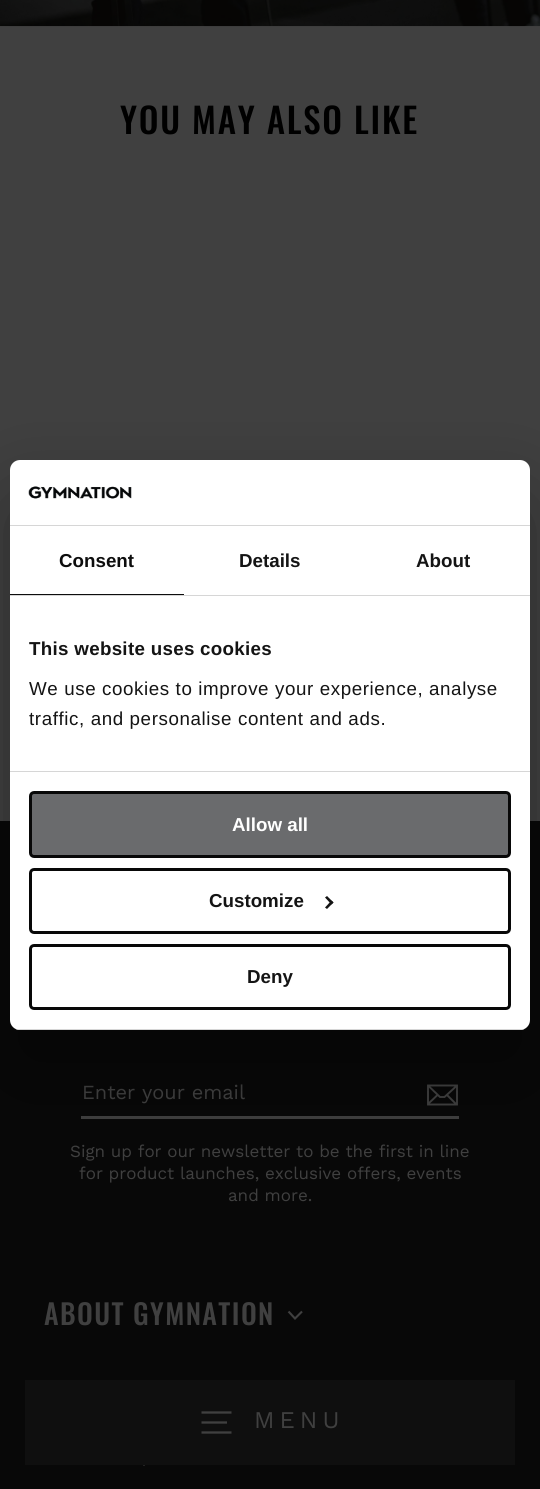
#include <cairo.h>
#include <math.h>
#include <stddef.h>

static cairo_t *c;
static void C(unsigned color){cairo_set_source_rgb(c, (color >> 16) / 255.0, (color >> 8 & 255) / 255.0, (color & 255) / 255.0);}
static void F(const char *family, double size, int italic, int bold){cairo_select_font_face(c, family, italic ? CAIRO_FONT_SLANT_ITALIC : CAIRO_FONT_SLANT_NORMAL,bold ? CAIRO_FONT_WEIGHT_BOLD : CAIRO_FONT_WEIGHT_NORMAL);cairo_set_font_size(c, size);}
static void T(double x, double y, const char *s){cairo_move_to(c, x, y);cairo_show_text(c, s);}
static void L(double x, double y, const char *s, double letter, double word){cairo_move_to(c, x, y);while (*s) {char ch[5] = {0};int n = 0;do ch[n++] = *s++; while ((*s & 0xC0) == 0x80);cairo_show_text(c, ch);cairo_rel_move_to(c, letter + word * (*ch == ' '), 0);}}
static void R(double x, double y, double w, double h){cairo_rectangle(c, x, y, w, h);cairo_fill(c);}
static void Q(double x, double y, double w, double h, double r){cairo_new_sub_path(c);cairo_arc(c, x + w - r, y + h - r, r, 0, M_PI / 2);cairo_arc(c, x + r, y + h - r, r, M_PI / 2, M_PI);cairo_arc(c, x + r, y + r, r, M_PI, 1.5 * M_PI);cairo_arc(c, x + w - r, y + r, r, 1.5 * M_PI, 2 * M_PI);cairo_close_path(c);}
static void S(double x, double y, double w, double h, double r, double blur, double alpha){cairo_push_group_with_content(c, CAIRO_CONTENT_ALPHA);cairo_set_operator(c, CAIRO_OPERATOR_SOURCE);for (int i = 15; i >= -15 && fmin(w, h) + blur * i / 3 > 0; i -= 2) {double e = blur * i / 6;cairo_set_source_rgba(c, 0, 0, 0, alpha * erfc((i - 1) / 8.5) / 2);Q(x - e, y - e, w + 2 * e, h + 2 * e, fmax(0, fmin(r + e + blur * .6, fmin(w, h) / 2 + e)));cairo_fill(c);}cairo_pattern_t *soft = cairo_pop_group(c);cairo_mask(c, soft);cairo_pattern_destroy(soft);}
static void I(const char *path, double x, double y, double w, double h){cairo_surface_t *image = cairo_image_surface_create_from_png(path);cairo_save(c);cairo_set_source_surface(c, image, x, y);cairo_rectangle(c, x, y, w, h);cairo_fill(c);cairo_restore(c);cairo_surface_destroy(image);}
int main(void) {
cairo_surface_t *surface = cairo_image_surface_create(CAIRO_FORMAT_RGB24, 540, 1489);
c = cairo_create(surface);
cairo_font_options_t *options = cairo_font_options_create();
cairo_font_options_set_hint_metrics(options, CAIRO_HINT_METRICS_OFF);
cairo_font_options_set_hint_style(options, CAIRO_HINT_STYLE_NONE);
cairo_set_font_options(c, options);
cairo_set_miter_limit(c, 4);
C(0x404040);
cairo_paint(c);
I("1.png",0,0,540,27);
F("Oswald Medium",35,0,0);
C(0x000000);
L(120,134,"YOU MAY ALSO LIKE",1.75,0);
C(0x080808);
R(0,821,540,668);
C(0x404040);
R(81,1116,378,3);
F("Work Sans",20,0,0);
T(82,1099,"Enter your email");
cairo_new_path(c);
cairo_move_to(c,457,1104.5);
cairo_line_to(c,428,1104.5);
cairo_line_to(c,428,1085.5);
cairo_line_to(c,457,1085.5);
cairo_close_path(c);
cairo_move_to(c,428,1085.5);
cairo_line_to(c,440,1097);
cairo_line_to(c,444.5,1097);
cairo_line_to(c,457,1085.5);
cairo_move_to(c,437.5,1095);
cairo_line_to(c,428,1104);
cairo_move_to(c,456.5,1104.5);
cairo_line_to(c,447,1095);
cairo_set_line_width(c,1.9);
cairo_stroke(c);
F("Work Sans",17,0,0);
T(70,1157,"Sign up for our newsletter to be the first in line");
T(79,1179,"for product launches, exclusive offers, events");
T(228,1201,"and more.");
F("Oswald Medium",28,0,0);
L(44,1325,"ABOUT GYMNATION",1.4,0);
cairo_new_path(c);
cairo_move_to(c,288.5,1311.5);
cairo_line_to(c,295,1318.5);
cairo_line_to(c,302,1311.5);
cairo_set_line_width(c,2.1);
cairo_stroke(c);
cairo_new_path(c);
cairo_move_to(c,137,1458);
cairo_line_to(c,144,1464.5);
cairo_line_to(c,151,1458);
cairo_stroke(c);
C(0x0f0f0f);
R(25,1380,490,85);
cairo_new_path(c);
cairo_move_to(c,201.5,1412.5);
cairo_line_to(c,231.5,1412.5);
cairo_move_to(c,201.5,1422.5);
cairo_line_to(c,227,1422.5);
cairo_move_to(c,201.5,1432.5);
cairo_line_to(c,231.5,1432.5);
C(0x404040);
cairo_set_line_width(c,2.3);
cairo_stroke(c);
F("Work Sans",24,0,0);
L(254,1428,"MENU",5,0);
C(0x000000);
S(10,500,520,570,10,42.5,.3);
C(0xffffff);
Q(10,460,520,570,10);
cairo_fill(c);
C(0xd6d6d6);
R(10,525,520,1);
I("2.png",28,486,104,13);
R(10,595,520,1);
C(0x0d0d0d);
R(10,594,174,1);
F("Liberation Sans",18.75,0,1);
T(59,567,"Consent");
C(0x141414);
T(239,567,"Details");
T(416,567,"About");
C(0xd6d6d6);
R(10,771,520,1);
C(0x141414);
L(29,655,"This website uses cookies",.3,0);
F("Liberation Sans",18.75,0,0);
L(29,695,"We use cookies to improve your experience, analyse",.6,0);
L(29,725,"traffic, and personalise content and ads.",.6,0);
cairo_save(c);
Q(10,460,520,570,10);
cairo_clip(c);
C(0xd6d6d6);
R(10,1029,520,1);
cairo_restore(c);
C(0x6a6b6d);
Q(30.5,792.5,479,64,3.5);
cairo_fill_preserve(c);
C(0x080808);
cairo_set_line_width(c,3);
cairo_stroke(c);
F("Liberation Sans",18.75,0,1);
C(0xffffff);
T(232,831,"Allow all");
Q(30.5,869.5,479,63,3.5);
C(0x080808);
cairo_stroke(c);
C(0x141414);
T(209,907,"Customize");
cairo_new_path(c);
cairo_move_to(c,327,896);
cairo_line_to(c,333.5,902.5);
cairo_line_to(c,331.5,904.5);
cairo_line_to(c,325,897.5);
cairo_close_path(c);
cairo_fill(c);
cairo_new_path(c);
cairo_move_to(c,331.5,900.5);
cairo_line_to(c,333.5,902.5);
cairo_line_to(c,327,909);
cairo_line_to(c,325,907.5);
cairo_close_path(c);
cairo_fill(c);
Q(30.5,945.5,479,63,3.5);
C(0x080808);
cairo_stroke(c);
C(0x141414);
T(247,983,"Deny");
cairo_surface_write_to_png(surface, "o.png");
cairo_font_options_destroy(options);
cairo_destroy(c);
cairo_surface_destroy(surface);
return 0;
}
